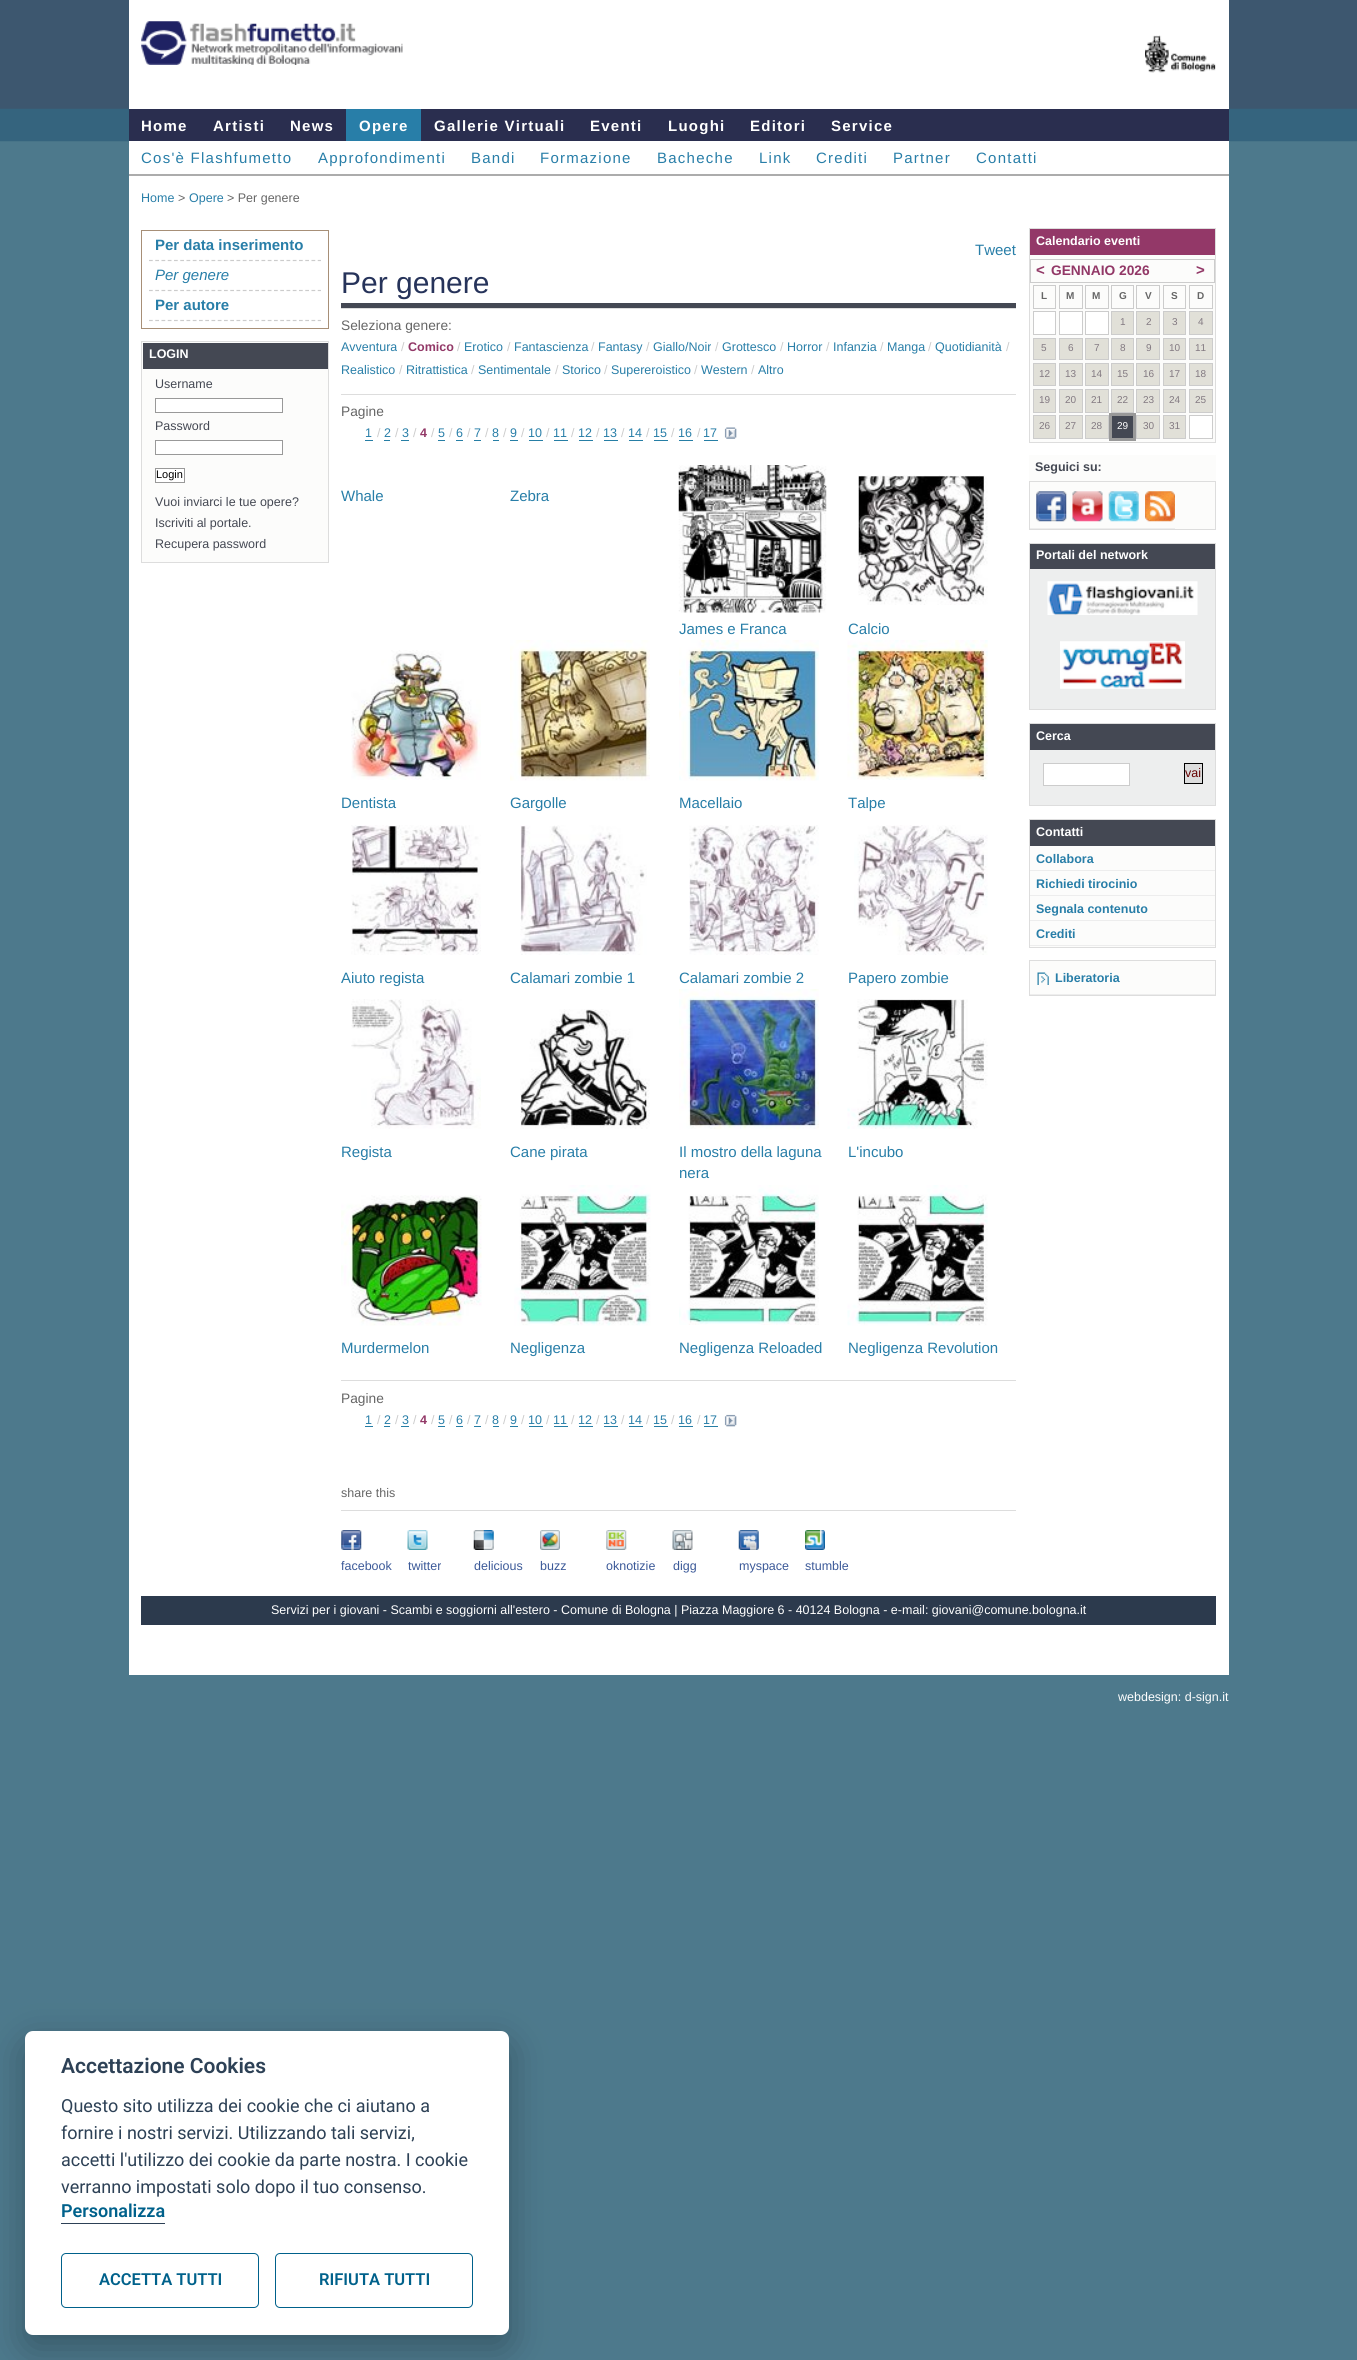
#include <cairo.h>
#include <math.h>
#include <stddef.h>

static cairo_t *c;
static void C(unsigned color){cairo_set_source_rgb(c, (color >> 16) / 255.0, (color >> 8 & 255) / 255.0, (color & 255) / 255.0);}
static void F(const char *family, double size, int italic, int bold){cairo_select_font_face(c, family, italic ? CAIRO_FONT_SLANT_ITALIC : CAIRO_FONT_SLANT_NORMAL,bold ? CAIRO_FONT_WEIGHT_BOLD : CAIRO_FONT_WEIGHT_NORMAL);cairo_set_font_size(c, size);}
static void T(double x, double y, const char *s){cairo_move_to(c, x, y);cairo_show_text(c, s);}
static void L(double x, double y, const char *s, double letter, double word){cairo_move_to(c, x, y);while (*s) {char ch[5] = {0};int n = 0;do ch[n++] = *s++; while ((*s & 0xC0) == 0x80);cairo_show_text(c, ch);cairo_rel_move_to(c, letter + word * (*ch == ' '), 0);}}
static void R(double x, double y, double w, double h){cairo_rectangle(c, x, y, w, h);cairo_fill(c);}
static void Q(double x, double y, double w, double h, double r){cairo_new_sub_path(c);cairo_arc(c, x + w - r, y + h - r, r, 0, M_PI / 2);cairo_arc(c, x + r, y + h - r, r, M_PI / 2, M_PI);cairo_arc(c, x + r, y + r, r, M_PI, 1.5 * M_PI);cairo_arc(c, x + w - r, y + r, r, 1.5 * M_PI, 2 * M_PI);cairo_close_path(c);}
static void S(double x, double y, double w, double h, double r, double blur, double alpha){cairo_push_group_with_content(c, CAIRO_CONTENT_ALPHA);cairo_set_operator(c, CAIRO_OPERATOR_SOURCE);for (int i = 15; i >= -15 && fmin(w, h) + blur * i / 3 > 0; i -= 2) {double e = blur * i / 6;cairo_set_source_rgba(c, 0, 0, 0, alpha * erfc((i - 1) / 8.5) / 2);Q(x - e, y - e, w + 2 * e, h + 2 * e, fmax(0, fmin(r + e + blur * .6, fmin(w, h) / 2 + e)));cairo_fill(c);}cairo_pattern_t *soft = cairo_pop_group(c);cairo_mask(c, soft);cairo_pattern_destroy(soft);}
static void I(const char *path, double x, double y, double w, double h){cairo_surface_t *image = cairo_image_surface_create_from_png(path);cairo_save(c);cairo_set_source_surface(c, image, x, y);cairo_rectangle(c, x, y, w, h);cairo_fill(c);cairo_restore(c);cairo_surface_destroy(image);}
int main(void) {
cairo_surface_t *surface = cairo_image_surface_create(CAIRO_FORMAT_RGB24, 1357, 2360);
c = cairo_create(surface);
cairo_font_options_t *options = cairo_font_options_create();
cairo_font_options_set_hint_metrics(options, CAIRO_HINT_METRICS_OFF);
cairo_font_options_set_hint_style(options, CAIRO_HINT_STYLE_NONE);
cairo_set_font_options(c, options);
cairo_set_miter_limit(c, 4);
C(0x4d798c);
cairo_paint(c);
I("1.png",0,0,1357,142);
C(0xffffff);
R(129,0,1100,174);
I("2.png",141,21,262,44);
I("3.png",1145,35,71,38);
C(0x2a2e4f);
R(129,109,1100,32);
F("Liberation Sans",15,0,1);
C(0xffffff);
L(141,131,"Home",1.25,0);
L(213,131,"Artisti",1.25,0);
L(290,131,"News",1.25,0);
C(0x287ea8);
R(346,109,75,32);
C(0xffffff);
L(359,131,"Opere",1.25,0);
L(434,131,"Gallerie Virtuali",1.25,0);
L(590,131,"Eventi",1.25,0);
L(668,131,"Luoghi",1.25,0);
L(750,131,"Editori",1.25,0);
L(831,131,"Service",1.25,0);
C(0xacacac);
R(129,174,1100,2);
F("Liberation Sans",15,0,0);
C(0x287ea8);
L(141,163,"Cos'è Flashfumetto",1.25,0);
L(318,163,"Approfondimenti",1.25,0);
L(471,163,"Bandi",1.25,0);
L(540,163,"Formazione",1.25,0);
L(657,163,"Bacheche",1.25,0);
L(759,163,"Link",1.25,0);
L(816,163,"Crediti",1.25,0);
L(893,163,"Partner",1.25,0);
L(976,163,"Contatti",1.25,0);
C(0xffffff);
R(129,176,1100,1499);
F("Liberation Sans",12.5,0,0);
C(0x287ea8);
T(141,202,"Home");
C(0x666666);
T(178,202,">");
C(0x287ea8);
T(189,202,"Opere");
C(0x666666);
T(227,202,"> Per genere");
cairo_rectangle(c,141.5,230.5,187,98);
C(0xa78f77);
cairo_set_line_width(c,1);
cairo_stroke(c);
cairo_new_path(c);
cairo_move_to(c,149,260.5);
cairo_line_to(c,321,260.5);
C(0xcccccc);
cairo_set_line_width(c,1.2);
cairo_set_dash(c,(double[]){3.75,2.5},2,0);
cairo_stroke(c);
F("Liberation Sans",15,0,1);
C(0x287ea8);
T(155,250,"Per data inserimento");
cairo_new_path(c);
cairo_move_to(c,149,290.5);
cairo_line_to(c,321,290.5);
C(0xcccccc);
cairo_stroke(c);
F("Liberation Sans",15,1,0);
C(0x287ea8);
T(155,280,"Per genere");
cairo_new_path(c);
cairo_move_to(c,149,320.5);
cairo_line_to(c,321,320.5);
C(0xcccccc);
cairo_stroke(c);
F("Liberation Sans",15,0,1);
C(0x287ea8);
T(155,310,"Per autore");
C(0xfcfcfb);
cairo_rectangle(c,141.5,341.5,187,221);
cairo_fill_preserve(c);
C(0xdddddd);
cairo_set_line_width(c,1);
cairo_set_dash(c,NULL,0,0);
cairo_stroke(c);
C(0x444853);
R(143,343,185,26);
F("Liberation Sans",12.5,0,1);
C(0xffffff);
T(149,358,"LOGIN");
F("Liberation Sans",12.5,0,0);
C(0x444853);
T(155,388,"Username");
C(0xffffff);
cairo_rectangle(c,155.5,398.5,127,14);
cairo_fill_preserve(c);
C(0x999999);
cairo_stroke(c);
C(0x444853);
T(155,430,"Password");
C(0xffffff);
cairo_rectangle(c,155.5,440.5,127,14);
cairo_fill_preserve(c);
C(0x999999);
cairo_stroke(c);
C(0xffffff);
cairo_rectangle(c,155.5,468.5,29,14);
cairo_fill_preserve(c);
C(0x999999);
cairo_stroke(c);
F("Liberation Sans",11,0,0);
C(0x000000);
T(156,478,"Login");
F("Liberation Sans",12.5,0,0);
C(0x444853);
T(155,506,"Vuoi inviarci le tue opere?");
T(155,527,"Iscriviti al portale.");
T(155,548,"Recupera password");
F("Liberation Sans",15,0,0);
C(0x287ea8);
T(975,255,"Tweet");
C(0x444853);
R(341,303,675,5);
F("Liberation Sans",30,0,0);
C(0x26335a);
T(341,293,"Per genere");
C(0xdddddd);
R(341,308,675,1);
F("Liberation Sans",13.75,0,0);
C(0x666666);
T(341,330,"Seleziona genere:");
F("Liberation Sans",12.5,0,0);
C(0x287ea8);
T(341,351,"Avventura");
C(0xcccccc);
T(401,351,"/");
F("Liberation Sans",12.5,0,1);
C(0x923867);
T(408,351,"Comico");
F("Liberation Sans",12.5,0,0);
C(0xcccccc);
T(457,351,"/");
C(0x287ea8);
T(464,351,"Erotico");
C(0xcccccc);
T(507,351,"/");
C(0x287ea8);
T(514,351,"Fantascienza");
C(0xcccccc);
T(591,351,"/");
C(0x287ea8);
T(598,351,"Fantasy");
C(0xcccccc);
T(646,351,"/");
C(0x287ea8);
T(653,351,"Giallo/Noir");
C(0xcccccc);
T(715,351,"/");
C(0x287ea8);
T(722,351,"Grottesco");
C(0xcccccc);
T(780,351,"/");
C(0x287ea8);
T(787,351,"Horror");
C(0xcccccc);
T(826,351,"/");
C(0x287ea8);
T(833,351,"Infanzia");
C(0xcccccc);
T(880,351,"/");
C(0x287ea8);
T(887,351,"Manga");
C(0xcccccc);
T(928,351,"/");
C(0x287ea8);
T(935,351,"Quotidianità");
C(0xcccccc);
T(1006,351,"/");
C(0x287ea8);
T(341,374,"Realistico");
C(0xcccccc);
T(399,374,"/");
C(0x287ea8);
T(406,374,"Ritrattistica");
C(0xcccccc);
T(471,374,"/");
C(0x287ea8);
T(478,374,"Sentimentale");
C(0xcccccc);
T(555,374,"/");
C(0x287ea8);
T(562,374,"Storico");
C(0xcccccc);
T(604,374,"/");
C(0x287ea8);
T(611,374,"Supereroistico");
C(0xcccccc);
T(694,374,"/");
C(0x287ea8);
T(701,374,"Western");
C(0xcccccc);
T(751,374,"/");
C(0x287ea8);
T(758,374,"Altro");
C(0xdddddd);
R(341,394,675,1);
F("Liberation Sans",13.75,0,0);
C(0x666666);
T(341,416,"Pagine");
F("Liberation Sans",12.5,0,0);
C(0x287ea8);
T(365,437,"1");
C(0x267ea5);
R(365,440,8,1);
C(0xcccccc);
T(377,437,"/");
C(0x287ea8);
T(384,437,"2");
C(0x267ea5);
R(384,440,6,1);
C(0xcccccc);
T(395,437,"/");
C(0x287ea8);
T(402,437,"3");
C(0x267ea5);
R(401,440,8,1);
C(0xcccccc);
T(413,437,"/");
F("Liberation Sans",12.5,0,1);
C(0x923867);
T(420,437,"4");
F("Liberation Sans",12.5,0,0);
C(0xcccccc);
T(431,437,"/");
C(0x287ea8);
T(438,437,"5");
C(0x267ea5);
R(438,440,7,1);
C(0xcccccc);
T(449,437,"/");
C(0x287ea8);
T(456,437,"6");
C(0x267ea5);
R(456,440,7,1);
C(0xcccccc);
T(467,437,"/");
C(0x287ea8);
T(474,437,"7");
C(0x267ea5);
R(474,440,7,1);
C(0xcccccc);
T(485,437,"/");
C(0x287ea8);
T(492,437,"8");
C(0x267ea5);
R(493,440,6,1);
C(0xcccccc);
T(503,437,"/");
C(0x287ea8);
T(510,437,"9");
C(0x267ea5);
R(510,440,8,1);
C(0xcccccc);
T(521,437,"/");
C(0x287ea8);
T(528,437,"10");
C(0x267ea5);
R(529,440,14,1);
C(0xcccccc);
T(546,437,"/");
C(0x287ea8);
T(553,437,"11");
C(0x267ea5);
R(554,440,14,1);
C(0xcccccc);
T(571,437,"/");
C(0x287ea8);
T(578,437,"12");
C(0x267ea5);
R(579,440,14,1);
C(0xcccccc);
T(596,437,"/");
C(0x287ea8);
T(603,437,"13");
C(0x267ea5);
R(604,440,14,1);
C(0xcccccc);
T(621,437,"/");
C(0x287ea8);
T(628,437,"14");
C(0x267ea5);
R(629,440,14,1);
C(0xcccccc);
T(646,437,"/");
C(0x287ea8);
T(653,437,"15");
C(0x267ea5);
R(654,440,14,1);
C(0xcccccc);
T(671,437,"/");
C(0x287ea8);
T(678,437,"16");
C(0x267ea5);
R(679,440,14,1);
C(0xcccccc);
T(697,437,"/");
C(0x287ea8);
T(703,437,"17");
C(0x267ea5);
R(704,440,14,1);
I("4.png",724,427,13,12);
F("Liberation Sans",15,0,0);
C(0x287ea8);
T(341,501,"Whale");
T(510,501,"Zebra");
I("5.png",678,465,149,148);
T(679,634,"James e Franca");
I("6.png",858,475,130,130);
T(848,634,"Calcio");
I("7.png",351,650,130,130);
T(341,808,"Dentista");
I("8.png",510,640,140,141);
T(510,808,"Gargolle");
I("9.png",679,640,140,141);
T(679,808,"Macellaio");
I("10.png",847,640,141,140);
T(848,808,"Talpe");
I("11.png",351,825,130,130);
T(341,983,"Aiuto regista");
I("12.png",520,825,127,130);
T(510,983,"Calamari zombie 1");
I("13.png",689,825,130,130);
T(679,983,"Calamari zombie 2");
I("14.png",854,825,134,130);
T(848,983,"Papero zombie");
I("15.png",351,999,130,130);
T(341,1157,"Regista");
I("16.png",520,1009,130,120);
T(510,1157,"Cane pirata");
I("17.png",679,989,140,141);
T(679,1157,"Il mostro della laguna");
T(679,1178,"nera");
I("18.png",847,999,141,130);
T(848,1157,"L'incubo");
I("19.png",341,1195,141,131);
T(341,1353,"Murdermelon");
I("20.png",514,1185,137,141);
T(510,1353,"Negligenza");
I("21.png",679,1185,140,140);
T(679,1353,"Negligenza Reloaded");
I("22.png",847,1185,141,141);
T(848,1353,"Negligenza Revolution");
C(0xdddddd);
R(341,1380,675,1);
F("Liberation Sans",13.75,0,0);
C(0x666666);
T(341,1403,"Pagine");
F("Liberation Sans",12.5,0,0);
C(0x287ea8);
T(365,1424,"1");
C(0x267ea5);
R(365,1426,8,1);
C(0xcccccc);
T(377,1424,"/");
C(0x287ea8);
T(384,1424,"2");
C(0x267ea5);
R(384,1426,6,1);
C(0xcccccc);
T(395,1424,"/");
C(0x287ea8);
T(402,1424,"3");
C(0x267ea5);
R(401,1426,8,1);
C(0xcccccc);
T(413,1424,"/");
F("Liberation Sans",12.5,0,1);
C(0x923867);
T(420,1424,"4");
F("Liberation Sans",12.5,0,0);
C(0xcccccc);
T(431,1424,"/");
C(0x287ea8);
T(438,1424,"5");
C(0x267ea5);
R(438,1426,7,1);
C(0xcccccc);
T(449,1424,"/");
C(0x287ea8);
T(456,1424,"6");
C(0x267ea5);
R(456,1426,7,1);
C(0xcccccc);
T(467,1424,"/");
C(0x287ea8);
T(474,1424,"7");
C(0x267ea5);
R(474,1426,7,1);
C(0xcccccc);
T(485,1424,"/");
C(0x287ea8);
T(492,1424,"8");
C(0x267ea5);
R(493,1426,6,1);
C(0xcccccc);
T(503,1424,"/");
C(0x287ea8);
T(510,1424,"9");
C(0x267ea5);
R(510,1426,8,1);
C(0xcccccc);
T(521,1424,"/");
C(0x287ea8);
T(528,1424,"10");
C(0x267ea5);
R(529,1426,14,1);
C(0xcccccc);
T(546,1424,"/");
C(0x287ea8);
T(553,1424,"11");
C(0x267ea5);
R(554,1426,14,1);
C(0xcccccc);
T(571,1424,"/");
C(0x287ea8);
T(578,1424,"12");
C(0x267ea5);
R(579,1426,14,1);
C(0xcccccc);
T(596,1424,"/");
C(0x287ea8);
T(603,1424,"13");
C(0x267ea5);
R(604,1426,14,1);
C(0xcccccc);
T(621,1424,"/");
C(0x287ea8);
T(628,1424,"14");
C(0x267ea5);
R(629,1426,14,1);
C(0xcccccc);
T(646,1424,"/");
C(0x287ea8);
T(653,1424,"15");
C(0x267ea5);
R(654,1426,14,1);
C(0xcccccc);
T(671,1424,"/");
C(0x287ea8);
T(678,1424,"16");
C(0x267ea5);
R(679,1426,14,1);
C(0xcccccc);
T(697,1424,"/");
C(0x287ea8);
T(703,1424,"17");
C(0x267ea5);
R(704,1426,14,1);
I("23.png",724,1414,13,13);
C(0x666666);
T(341,1497,"share this");
C(0xdddddd);
R(341,1510,675,1);
I("24.png",341,1530,21,20);
C(0x3b5998);
T(341,1570,"facebook");
I("25.png",407,1530,21,20);
T(408,1570,"twitter");
I("26.png",473,1530,21,20);
T(474,1570,"delicious");
I("27.png",540,1530,20,20);
T(540,1570,"buzz");
I("28.png",606,1530,21,20);
T(606,1570,"oknotizie");
I("29.png",672,1530,21,20);
T(673,1570,"digg");
I("30.png",738,1530,21,20);
T(739,1570,"myspace");
I("31.png",805,1530,20,20);
T(805,1570,"stumble");
C(0xfcfcfb);
R(1030,255,185,187);
cairo_rectangle(c,1029.5,228.5,186,214);
C(0xdddddd);
cairo_stroke(c);
C(0x933868);
R(1030,229,185,26);
F("Liberation Sans",12.5,0,1);
C(0xffffff);
T(1036,245,"Calendario eventi");
cairo_rectangle(c,1030.5,259.5,184,23);
C(0xcccccc);
cairo_stroke(c);
F("Liberation Sans",15,0,1);
C(0x923867);
T(1036,275,"<");
F("Liberation Sans",13.75,0,1);
T(1051,275,"GENNAIO 2026");
F("Liberation Sans",15,0,1);
T(1196,275,">");
cairo_rectangle(c,1033.5,285.5,22,23);
C(0xcccccc);
cairo_stroke(c);
F("Liberation Sans",10,0,1);
C(0x666666);
T(1041,299,"L");
cairo_rectangle(c,1059.5,285.5,23,23);
C(0xcccccc);
cairo_stroke(c);
C(0x666666);
T(1066,299,"M");
cairo_rectangle(c,1085.5,285.5,23,23);
C(0xcccccc);
cairo_stroke(c);
C(0x666666);
T(1092,299,"M");
cairo_rectangle(c,1111.5,285.5,22,23);
C(0xcccccc);
cairo_stroke(c);
C(0x666666);
T(1119,299,"G");
cairo_rectangle(c,1136.5,285.5,23,23);
C(0xcccccc);
cairo_stroke(c);
C(0x666666);
T(1145,299,"V");
cairo_rectangle(c,1163.5,285.5,22,23);
C(0xcccccc);
cairo_stroke(c);
C(0x666666);
T(1171,299,"S");
cairo_rectangle(c,1189.5,285.5,23,23);
C(0xcccccc);
cairo_stroke(c);
C(0x666666);
T(1197,299,"D");
C(0xffffff);
cairo_rectangle(c,1033.5,311.5,22,23);
cairo_fill_preserve(c);
C(0xcccccc);
cairo_stroke(c);
C(0xffffff);
cairo_rectangle(c,1059.5,311.5,23,23);
cairo_fill_preserve(c);
C(0xcccccc);
cairo_stroke(c);
C(0xffffff);
cairo_rectangle(c,1085.5,311.5,23,23);
cairo_fill_preserve(c);
C(0xcccccc);
cairo_stroke(c);
C(0xe1e0d8);
cairo_rectangle(c,1111.5,311.5,22,23);
cairo_fill_preserve(c);
C(0xcccccc);
cairo_stroke(c);
F("Liberation Sans",10,0,0);
C(0x827981);
T(1120,325,"1");
C(0xe1e0d8);
cairo_rectangle(c,1136.5,311.5,23,23);
cairo_fill_preserve(c);
C(0xcccccc);
cairo_stroke(c);
C(0x827981);
T(1146,325,"2");
C(0xe1e0d8);
cairo_rectangle(c,1163.5,311.5,22,23);
cairo_fill_preserve(c);
C(0xcccccc);
cairo_stroke(c);
C(0x827981);
T(1172,325,"3");
C(0xe1e0d8);
cairo_rectangle(c,1189.5,311.5,23,23);
cairo_fill_preserve(c);
C(0xcccccc);
cairo_stroke(c);
C(0x827981);
T(1198,325,"4");
C(0xe1e0d8);
cairo_rectangle(c,1033.5,338.5,22,21);
cairo_fill_preserve(c);
C(0xcccccc);
cairo_stroke(c);
C(0x827981);
T(1041,351,"5");
C(0xe1e0d8);
cairo_rectangle(c,1059.5,338.5,23,21);
cairo_fill_preserve(c);
C(0xcccccc);
cairo_stroke(c);
C(0x827981);
T(1068,351,"6");
C(0xe1e0d8);
cairo_rectangle(c,1085.5,338.5,23,21);
cairo_fill_preserve(c);
C(0xcccccc);
cairo_stroke(c);
C(0x827981);
T(1094,351,"7");
C(0xe1e0d8);
cairo_rectangle(c,1111.5,338.5,22,21);
cairo_fill_preserve(c);
C(0xcccccc);
cairo_stroke(c);
C(0x827981);
T(1120,351,"8");
C(0xe1e0d8);
cairo_rectangle(c,1136.5,338.5,23,21);
cairo_fill_preserve(c);
C(0xcccccc);
cairo_stroke(c);
C(0x827981);
T(1146,351,"9");
C(0xe1e0d8);
cairo_rectangle(c,1163.5,338.5,22,21);
cairo_fill_preserve(c);
C(0xcccccc);
cairo_stroke(c);
C(0x827981);
T(1169,351,"10");
C(0xe1e0d8);
cairo_rectangle(c,1189.5,338.5,23,21);
cairo_fill_preserve(c);
C(0xcccccc);
cairo_stroke(c);
C(0x827981);
T(1195,351,"11");
C(0xe1e0d8);
cairo_rectangle(c,1033.5,363.5,22,22);
cairo_fill_preserve(c);
C(0xcccccc);
cairo_stroke(c);
C(0x827981);
T(1039,377,"12");
C(0xe1e0d8);
cairo_rectangle(c,1059.5,363.5,23,22);
cairo_fill_preserve(c);
C(0xcccccc);
cairo_stroke(c);
C(0x827981);
T(1065,377,"13");
C(0xe1e0d8);
cairo_rectangle(c,1085.5,363.5,23,22);
cairo_fill_preserve(c);
C(0xcccccc);
cairo_stroke(c);
C(0x827981);
T(1091,377,"14");
C(0xe1e0d8);
cairo_rectangle(c,1111.5,363.5,22,22);
cairo_fill_preserve(c);
C(0xcccccc);
cairo_stroke(c);
C(0x827981);
T(1117,377,"15");
C(0xe1e0d8);
cairo_rectangle(c,1136.5,363.5,23,22);
cairo_fill_preserve(c);
C(0xcccccc);
cairo_stroke(c);
C(0x827981);
T(1143,377,"16");
C(0xe1e0d8);
cairo_rectangle(c,1163.5,363.5,22,22);
cairo_fill_preserve(c);
C(0xcccccc);
cairo_stroke(c);
C(0x827981);
T(1169,377,"17");
C(0xe1e0d8);
cairo_rectangle(c,1189.5,363.5,23,22);
cairo_fill_preserve(c);
C(0xcccccc);
cairo_stroke(c);
C(0x827981);
T(1195,377,"18");
C(0xe1e0d8);
cairo_rectangle(c,1033.5,389.5,22,23);
cairo_fill_preserve(c);
C(0xcccccc);
cairo_stroke(c);
C(0x827981);
T(1039,403,"19");
C(0xe1e0d8);
cairo_rectangle(c,1059.5,389.5,23,23);
cairo_fill_preserve(c);
C(0xcccccc);
cairo_stroke(c);
C(0x827981);
T(1065,403,"20");
C(0xe1e0d8);
cairo_rectangle(c,1085.5,389.5,23,23);
cairo_fill_preserve(c);
C(0xcccccc);
cairo_stroke(c);
C(0x827981);
T(1091,403,"21");
C(0xe1e0d8);
cairo_rectangle(c,1111.5,389.5,22,23);
cairo_fill_preserve(c);
C(0xcccccc);
cairo_stroke(c);
C(0x827981);
T(1117,403,"22");
C(0xe1e0d8);
cairo_rectangle(c,1136.5,389.5,23,23);
cairo_fill_preserve(c);
C(0xcccccc);
cairo_stroke(c);
C(0x827981);
T(1143,403,"23");
C(0xe1e0d8);
cairo_rectangle(c,1163.5,389.5,22,23);
cairo_fill_preserve(c);
C(0xcccccc);
cairo_stroke(c);
C(0x827981);
T(1169,403,"24");
C(0xe1e0d8);
cairo_rectangle(c,1189.5,389.5,23,23);
cairo_fill_preserve(c);
C(0xcccccc);
cairo_stroke(c);
C(0x827981);
T(1195,403,"25");
C(0xe1e0d8);
cairo_rectangle(c,1033.5,415.5,22,23);
cairo_fill_preserve(c);
C(0xcccccc);
cairo_stroke(c);
C(0x827981);
T(1039,429,"26");
C(0xe1e0d8);
cairo_rectangle(c,1059.5,415.5,23,23);
cairo_fill_preserve(c);
C(0xcccccc);
cairo_stroke(c);
C(0x827981);
T(1065,429,"27");
C(0xe1e0d8);
cairo_rectangle(c,1085.5,415.5,23,23);
cairo_fill_preserve(c);
C(0xcccccc);
cairo_stroke(c);
C(0x827981);
T(1091,429,"28");
C(0x444853);
R(1112,416,21,22);
cairo_rectangle(c,1110.5,414.5,24,25);
C(0x999999);
cairo_set_line_width(c,3);
cairo_stroke(c);
C(0xffffff);
T(1117,429,"29");
C(0xe1e0d8);
cairo_rectangle(c,1136.5,415.5,23,23);
cairo_fill_preserve(c);
C(0xcccccc);
cairo_set_line_width(c,1);
cairo_stroke(c);
C(0x827981);
T(1143,429,"30");
C(0xe1e0d8);
cairo_rectangle(c,1163.5,415.5,22,23);
cairo_fill_preserve(c);
C(0xcccccc);
cairo_stroke(c);
C(0x827981);
T(1169,429,"31");
C(0xffffff);
cairo_rectangle(c,1189.5,415.5,23,23);
cairo_fill_preserve(c);
C(0xcccccc);
cairo_stroke(c);
C(0xfcfcfb);
R(1029,455,187,74);
F("Liberation Sans",12.5,0,1);
C(0x444853);
T(1035,471,"Seguici su:");
cairo_rectangle(c,1029.5,481.5,186,48);
C(0xdddddd);
cairo_stroke(c);
C(0xededed);
R(1030,528,145,1);
I("32.png",1036,491,31,31);
I("33.png",1072,491,31,31);
I("34.png",1108,491,31,31);
I("35.png",1145,491,30,31);
cairo_rectangle(c,1029.5,543.5,186,166);
C(0xdddddd);
cairo_stroke(c);
C(0x444853);
R(1030,544,185,25);
C(0xffffff);
T(1036,559,"Portali del network");
C(0xedeeee);
R(1030,569,185,140);
I("36.png",1047,581,151,34);
I("37.png",1060,641,125,48);
cairo_rectangle(c,1029.5,723.5,186,82);
C(0xdddddd);
cairo_stroke(c);
C(0x444853);
R(1030,724,185,26);
C(0xffffff);
T(1036,740,"Cerca");
C(0xedeeee);
R(1030,750,185,55);
C(0xffffff);
cairo_rectangle(c,1043.5,763.5,86,22);
cairo_fill_preserve(c);
C(0xcccccc);
cairo_stroke(c);
C(0xdddddd);
cairo_rectangle(c,1184.5,763.5,18,20);
cairo_fill_preserve(c);
C(0x000000);
cairo_stroke(c);
F("Liberation Sans",12.5,0,0);
C(0x660000);
T(1185,777,"vai");
C(0xfcfcfb);
R(1030,846,185,101);
cairo_rectangle(c,1029.5,819.5,186,128);
C(0xdddddd);
cairo_stroke(c);
C(0x444853);
R(1030,820,185,26);
F("Liberation Sans",12.5,0,1);
C(0xffffff);
T(1036,836,"Contatti");
C(0xededed);
R(1030,870,185,1);
C(0x287ea8);
T(1036,863,"Collabora");
C(0xededed);
R(1030,895,185,1);
C(0x287ea8);
T(1036,888,"Richiedi tirocinio");
C(0xededed);
R(1030,920,185,1);
C(0x287ea8);
T(1036,913,"Segnala contenuto");
C(0xededed);
R(1030,945,185,1);
C(0x287ea8);
T(1036,938,"Crediti");
C(0xfcfcfb);
R(1030,961,185,33);
cairo_rectangle(c,1029.5,960.5,186,35);
C(0xdddddd);
cairo_stroke(c);
C(0xededed);
R(1030,994,185,1);
I("38.png",1037,972,12,13);
C(0x287ea8);
T(1055,982,"Liberatoria");
C(0x2c3a4d);
R(141,1596,1075,29);
F("Liberation Sans",12.5,0,0);
C(0xffffff);
T(271,1614,"Servizi per i giovani - Scambi e soggiorni all'estero - Comune di Bologna | Piazza Maggiore 6 - 40124 Bologna - e-mail: giovani@comune.bologna.it");
T(1118,1701,"webdesign: d-sign.it");
C(0x020203);
S(25,2044,484,304,8,19,.28);
C(0xffffff);
Q(25,2031,484,304,8);
cairo_fill(c);
F("Roboto SemiBold",21,0,0);
C(0x2d4156);
T(61,2073,"Accettazione Cookies");
F("Roboto",18,0,0);
T(61,2112,"Questo sito utilizza dei cookie che ci aiutano a");
T(61,2139,"fornire i nostri servizi. Utilizzando tali servizi,");
T(61,2166,"accetti l'utilizzo dei cookie da parte nostra. I cookie");
T(61,2193,"verranno impostati solo dopo il tuo consenso.");
R(61,2223,104,1);
F("Roboto SemiBold",18,0,0);
C(0x00618b);
T(61,2217,"Personalizza");
Q(61.5,2253.5,197,54,4.5);
cairo_stroke(c);
F("Roboto SemiBold",16.5,0,0);
T(99,2285,"ACCETTA TUTTI");
Q(275.5,2253.5,197,54,4.5);
cairo_stroke(c);
T(319,2285,"RIFIUTA TUTTI");
cairo_surface_write_to_png(surface, "o.png");
cairo_font_options_destroy(options);
cairo_destroy(c);
cairo_surface_destroy(surface);
return 0;
}
